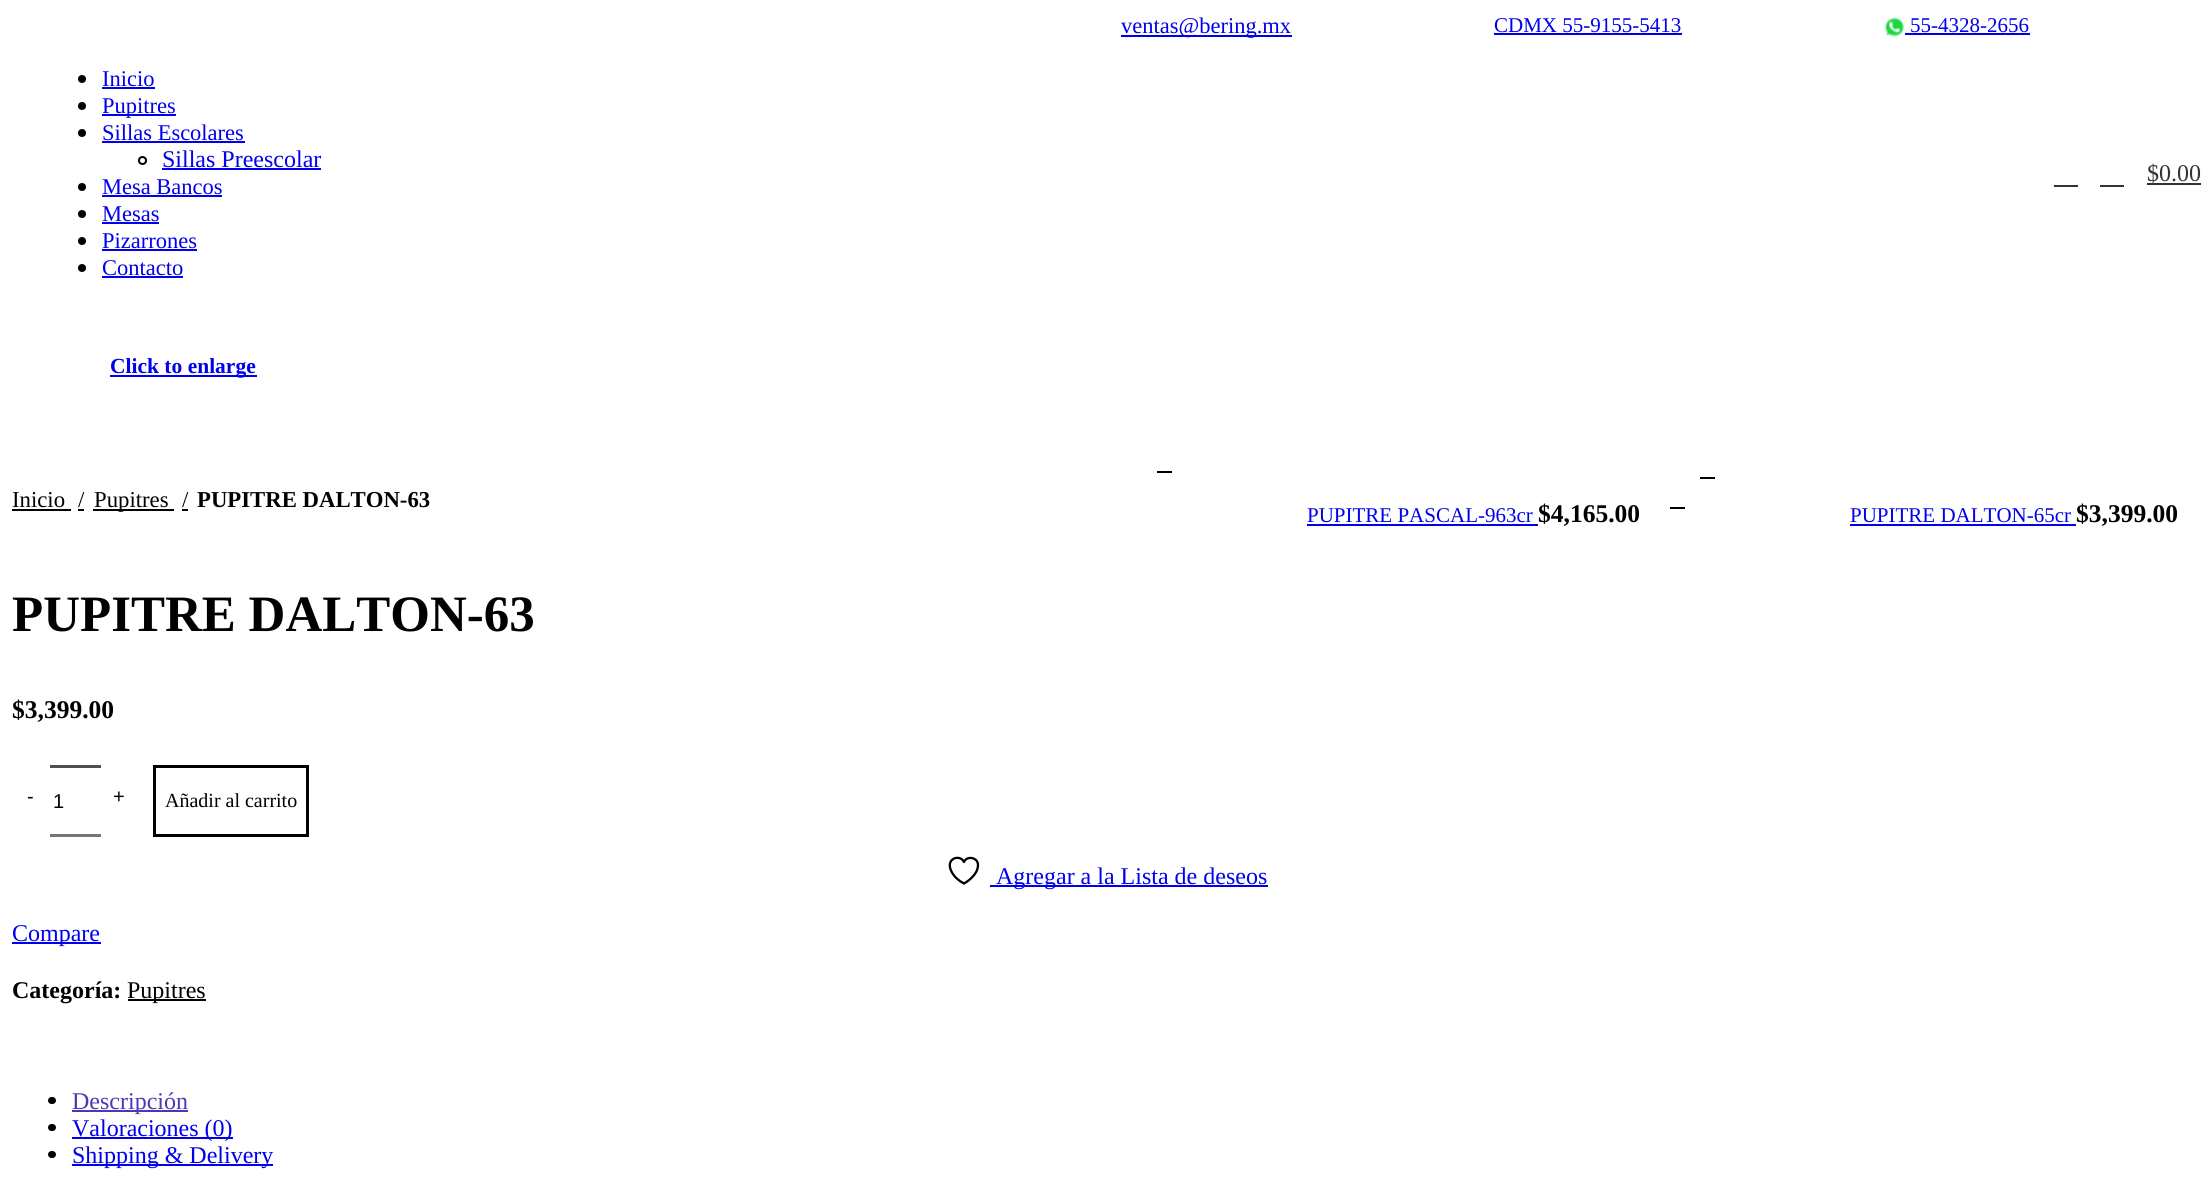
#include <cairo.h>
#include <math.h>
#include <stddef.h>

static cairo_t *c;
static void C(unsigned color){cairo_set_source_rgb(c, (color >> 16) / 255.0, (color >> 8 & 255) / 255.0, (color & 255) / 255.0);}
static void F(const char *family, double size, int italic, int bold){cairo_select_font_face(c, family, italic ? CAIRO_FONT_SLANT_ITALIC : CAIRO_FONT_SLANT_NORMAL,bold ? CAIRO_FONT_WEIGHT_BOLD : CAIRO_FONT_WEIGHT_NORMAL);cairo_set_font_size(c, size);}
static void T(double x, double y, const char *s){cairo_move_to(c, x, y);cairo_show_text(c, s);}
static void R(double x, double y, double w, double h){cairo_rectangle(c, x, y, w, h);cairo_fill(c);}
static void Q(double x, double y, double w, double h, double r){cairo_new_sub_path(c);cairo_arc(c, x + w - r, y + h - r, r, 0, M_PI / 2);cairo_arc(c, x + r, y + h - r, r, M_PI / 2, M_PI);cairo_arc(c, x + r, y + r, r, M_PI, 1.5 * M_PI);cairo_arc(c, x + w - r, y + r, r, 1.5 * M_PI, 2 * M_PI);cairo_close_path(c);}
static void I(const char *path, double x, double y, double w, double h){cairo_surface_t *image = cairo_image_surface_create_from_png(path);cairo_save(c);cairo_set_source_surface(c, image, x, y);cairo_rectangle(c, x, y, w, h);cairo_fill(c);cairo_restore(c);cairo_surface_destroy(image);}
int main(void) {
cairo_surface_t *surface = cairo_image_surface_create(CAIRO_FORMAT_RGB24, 2212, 1181);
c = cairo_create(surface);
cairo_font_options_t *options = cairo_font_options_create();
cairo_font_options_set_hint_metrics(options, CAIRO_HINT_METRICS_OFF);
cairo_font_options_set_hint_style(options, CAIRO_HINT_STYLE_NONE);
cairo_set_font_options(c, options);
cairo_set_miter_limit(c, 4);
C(0xffffff);
cairo_paint(c);
C(0x0000ee);
R(1121,35,171,2);
F("Liberation Serif",22.5,0,0);
T(1121,33,"ventas@bering.mx");
F("Liberation Serif",21,0,0);
T(1494,32,"CDMX 55-9155-5413");
R(1494,33,188,2);
I("1.png",1884,17,21,21);
T(1910,32,"55-4328-2656");
R(1905,33,125,2);
C(0x000000);
cairo_new_path(c);
cairo_arc(c,82,79,4,0,2 * M_PI);
cairo_fill(c);
F("Liberation Serif",22.5,0,0);
C(0x0000ee);
T(102,86,"Inicio");
R(102,87,53,2);
C(0x000000);
cairo_new_path(c);
cairo_arc(c,82,106,4,0,2 * M_PI);
cairo_fill(c);
C(0x0000ee);
R(102,114,74,2);
T(102,113,"Pupitres");
C(0x000000);
cairo_new_path(c);
cairo_arc(c,82,133,4,0,2 * M_PI);
cairo_fill(c);
C(0x0000ee);
T(102,140,"Sillas Escolares");
R(102,141,143,2);
cairo_new_path(c);
cairo_arc(c,142.5,160.5,3.5,0,2 * M_PI);
C(0x000000);
cairo_stroke(c);
F("Liberation Serif",24,0,0);
C(0x0000ee);
T(162,167,"Sillas Preescolar");
R(162,168,159,2);
C(0x000000);
cairo_new_path(c);
cairo_arc(c,82,187,4,0,2 * M_PI);
cairo_fill(c);
F("Liberation Serif",22.5,0,0);
C(0x0000ee);
T(102,194,"Mesa Bancos");
R(102,195,120,2);
C(0x000000);
cairo_new_path(c);
cairo_arc(c,82,214,4,0,2 * M_PI);
cairo_fill(c);
C(0x0000ee);
T(102,221,"Mesas");
R(102,222,57,2);
C(0x000000);
cairo_new_path(c);
cairo_arc(c,82,241,4,0,2 * M_PI);
cairo_fill(c);
C(0x0000ee);
T(102,248,"Pizarrones");
R(102,249,95,2);
C(0x000000);
cairo_new_path(c);
cairo_arc(c,82,268,4,0,2 * M_PI);
cairo_fill(c);
C(0x0000ee);
T(102,275,"Contacto");
R(102,276,81,2);
F("Liberation Serif",24,0,0);
C(0x333333);
T(2147,181,"$0.00");
R(2147,183,54,2);
R(2100,185,24,2);
R(2054,185,24,2);
C(0x0000ee);
R(110,375,147,2);
F("Liberation Serif",21.5,0,1);
T(110,373,"Click to enlarge");
F("Liberation Serif",22.75,0,0);
C(0x000000);
T(12,507,"Inicio");
R(12,509,59,2);
T(78,507,"/");
R(78,509,6,2);
R(93,509,81,2);
T(94,507,"Pupitres");
T(182,507,"/");
R(182,509,6,2);
F("Liberation Serif",22.75,0,1);
T(197,507,"PUPITRE DALTON-63");
R(1157,471,15,2);
F("Liberation Serif",21,0,0);
C(0x0000ee);
T(1307,522,"PUPITRE PASCAL-963cr");
R(1307,524,231,2);
F("Liberation Serif",25.5,0,1);
C(0x000000);
T(1538,522,"$4,165.00");
R(1670,507,15,2);
R(1700,477,15,2);
F("Liberation Serif",21,0,0);
C(0x0000ee);
T(1850,522,"PUPITRE DALTON-65cr");
R(1850,524,226,2);
F("Liberation Serif",25.5,0,1);
C(0x000000);
T(2076,522,"$3,399.00");
F("Liberation Serif",51,0,1);
T(12,631,"PUPITRE DALTON-63");
F("Liberation Serif",25.5,0,1);
T(12,718,"$3,399.00");
F("Liberation Sans",20,0,0);
T(27,803,"-");
C(0x4f4f4f);
R(50,765,51,3);
C(0x767676);
R(50,834,51,3);
C(0x000000);
T(53,808,"1");
T(113,803,"+");
cairo_rectangle(c,154.5,766.5,153,69);
cairo_set_line_width(c,3);
cairo_stroke(c);
F("Liberation Serif",20,0,0);
T(165,807,"Añadir al carrito");
cairo_new_path(c);
cairo_move_to(c,978,865);
cairo_curve_to(c,978,857,966.5,855.5,964,862);
cairo_curve_to(c,960,853.5,944,858.5,952,872.5);
cairo_curve_to(c,954.5,877,959,881,964,883.5);
cairo_curve_to(c,964,883.5,978,876,978,865);
cairo_close_path(c);
cairo_set_line_width(c,2.3);
cairo_set_line_cap(c,CAIRO_LINE_CAP_ROUND);
cairo_set_line_join(c,CAIRO_LINE_JOIN_ROUND);
cairo_stroke(c);
C(0x0000ee);
R(990,885,278,2);
F("Liberation Serif",24,0,0);
T(996,884,"Agregar a la Lista de deseos");
R(12,942,89,2);
T(12,941,"Compare");
F("Liberation Serif",24,0,1);
C(0x000000);
T(12,998,"Categoría:");
R(128,999,78,2);
F("Liberation Serif",24,0,0);
T(127,998,"Pupitres");
Q(48,1097,8,7,3.5);
cairo_fill(c);
C(0x4f35b7);
R(72,1110,116,2);
T(72,1109,"Descripción");
C(0x000000);
Q(48,1124,8,7,3.5);
cairo_fill(c);
C(0x0000ee);
R(72,1137,161,2);
T(72,1136,"Valoraciones (0)");
C(0x000000);
Q(48,1151,8,7,3.5);
cairo_fill(c);
C(0x0000ee);
R(72,1164,201,2);
T(72,1163,"Shipping & Delivery");
cairo_surface_write_to_png(surface, "o.png");
cairo_font_options_destroy(options);
cairo_destroy(c);
cairo_surface_destroy(surface);
return 0;
}
